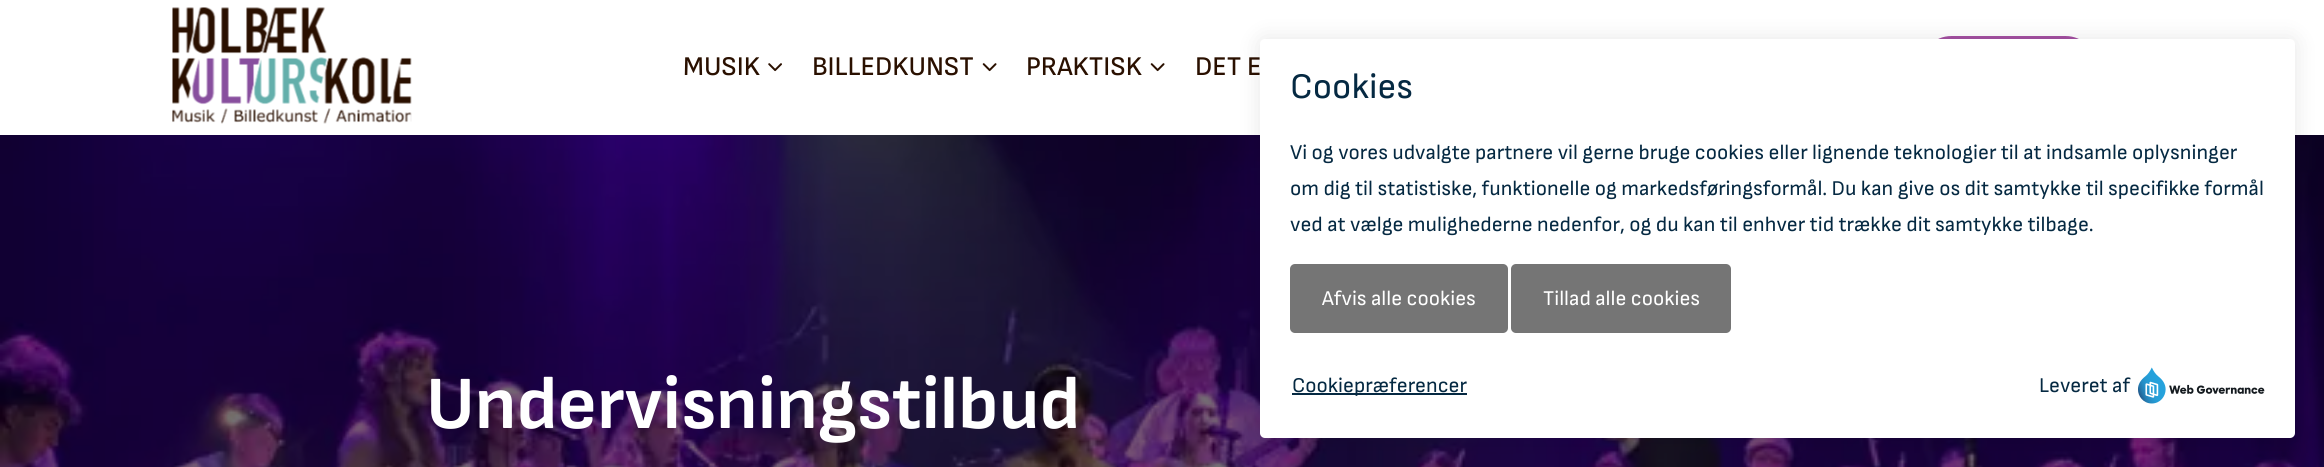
#include <cairo.h>
#include <math.h>
#include <stddef.h>

static cairo_t *c;
static void C(unsigned color){cairo_set_source_rgb(c, (color >> 16) / 255.0, (color >> 8 & 255) / 255.0, (color & 255) / 255.0);}
static void F(const char *family, double size, int italic, int bold){cairo_select_font_face(c, family, italic ? CAIRO_FONT_SLANT_ITALIC : CAIRO_FONT_SLANT_NORMAL,bold ? CAIRO_FONT_WEIGHT_BOLD : CAIRO_FONT_WEIGHT_NORMAL);cairo_set_font_size(c, size);}
static void T(double x, double y, const char *s){cairo_move_to(c, x, y);cairo_show_text(c, s);}
static void L(double x, double y, const char *s, double letter, double word){cairo_move_to(c, x, y);while (*s) {char ch[5] = {0};int n = 0;do ch[n++] = *s++; while ((*s & 0xC0) == 0x80);cairo_show_text(c, ch);cairo_rel_move_to(c, letter + word * (*ch == ' '), 0);}}
static void R(double x, double y, double w, double h){cairo_rectangle(c, x, y, w, h);cairo_fill(c);}
static void Q(double x, double y, double w, double h, double r){cairo_new_sub_path(c);cairo_arc(c, x + w - r, y + h - r, r, 0, M_PI / 2);cairo_arc(c, x + r, y + h - r, r, M_PI / 2, M_PI);cairo_arc(c, x + r, y + r, r, M_PI, 1.5 * M_PI);cairo_arc(c, x + w - r, y + r, r, 1.5 * M_PI, 2 * M_PI);cairo_close_path(c);}
static void S(double x, double y, double w, double h, double r, double blur, double alpha){cairo_push_group_with_content(c, CAIRO_CONTENT_ALPHA);cairo_set_operator(c, CAIRO_OPERATOR_SOURCE);for (int i = 15; i >= -15 && fmin(w, h) + blur * i / 3 > 0; i -= 2) {double e = blur * i / 6;cairo_set_source_rgba(c, 0, 0, 0, alpha * erfc((i - 1) / 8.5) / 2);Q(x - e, y - e, w + 2 * e, h + 2 * e, fmax(0, fmin(r + e + blur * .6, fmin(w, h) / 2 + e)));cairo_fill(c);}cairo_pattern_t *soft = cairo_pop_group(c);cairo_mask(c, soft);cairo_pattern_destroy(soft);}
static void I(const char *path, double x, double y, double w, double h){cairo_surface_t *image = cairo_image_surface_create_from_png(path);cairo_save(c);cairo_set_source_surface(c, image, x, y);cairo_rectangle(c, x, y, w, h);cairo_fill(c);cairo_restore(c);cairo_surface_destroy(image);}
int main(void) {
cairo_surface_t *surface = cairo_image_surface_create(CAIRO_FORMAT_RGB24, 2324, 467);
c = cairo_create(surface);
cairo_font_options_t *options = cairo_font_options_create();
cairo_font_options_set_hint_metrics(options, CAIRO_HINT_METRICS_OFF);
cairo_font_options_set_hint_style(options, CAIRO_HINT_STYLE_NONE);
cairo_set_font_options(c, options);
cairo_set_miter_limit(c, 4);
C(0xffffff);
cairo_paint(c);
I("1.png",172,7,240,117);
F("Sofia Sans Medium",27,0,0);
C(0x2a1000);
T(683,75,"MUSIK");
I("2.png",768,63,14,9);
T(812,75,"BILLEDKUNST");
I("3.png",982,63,15,9);
T(1026,75,"PRAKTISK");
I("3.png",1150,63,15,9);
T(1195,75,"DET E");
C(0xa450a2);
Q(1921,37,175,61,30.5);
cairo_fill_preserve(c);
cairo_stroke(c);
I("4.png",0,135,2324,332);
F("Sofia Sans",75,0,1);
C(0xffffff);
L(426,428,"Undervisningstilbud",-.1,0);
C(0x000000);
S(1260,39,1035,399,5,11,.1);
C(0xffffff);
Q(1260,39,1035,399,5);
cairo_fill(c);
F("Sofia Sans",36,0,0);
C(0x052942);
T(1290,98,"Cookies");
F("Sofia Sans",21,0,0);
T(1290,159,"Vi og vores udvalgte partnere vil gerne bruge cookies eller lignende teknologier til at indsamle oplysninger");
T(1290,195,"om dig til statistiske, funktionelle og markedsføringsformål. Du kan give os dit samtykke til specifikke formål");
T(1290,231,"ved at vælge mulighederne nedenfor, og du kan til enhver tid trække dit samtykke tilbage.");
C(0x757575);
Q(1290,264,218,69,5);
cairo_fill(c);
C(0xffffff);
T(1322,305,"Afvis alle cookies");
C(0x757575);
Q(1511,264,220,69,5);
cairo_fill(c);
C(0xffffff);
T(1543,305,"Tillad alle cookies");
C(0x052942);
R(1292,393,175,2);
T(1292,392,"Cookiepræferencer");
T(2039,392,"Leveret af");
I("5.png",2138,367,127,37);
cairo_surface_write_to_png(surface, "o.png");
cairo_font_options_destroy(options);
cairo_destroy(c);
cairo_surface_destroy(surface);
return 0;
}
